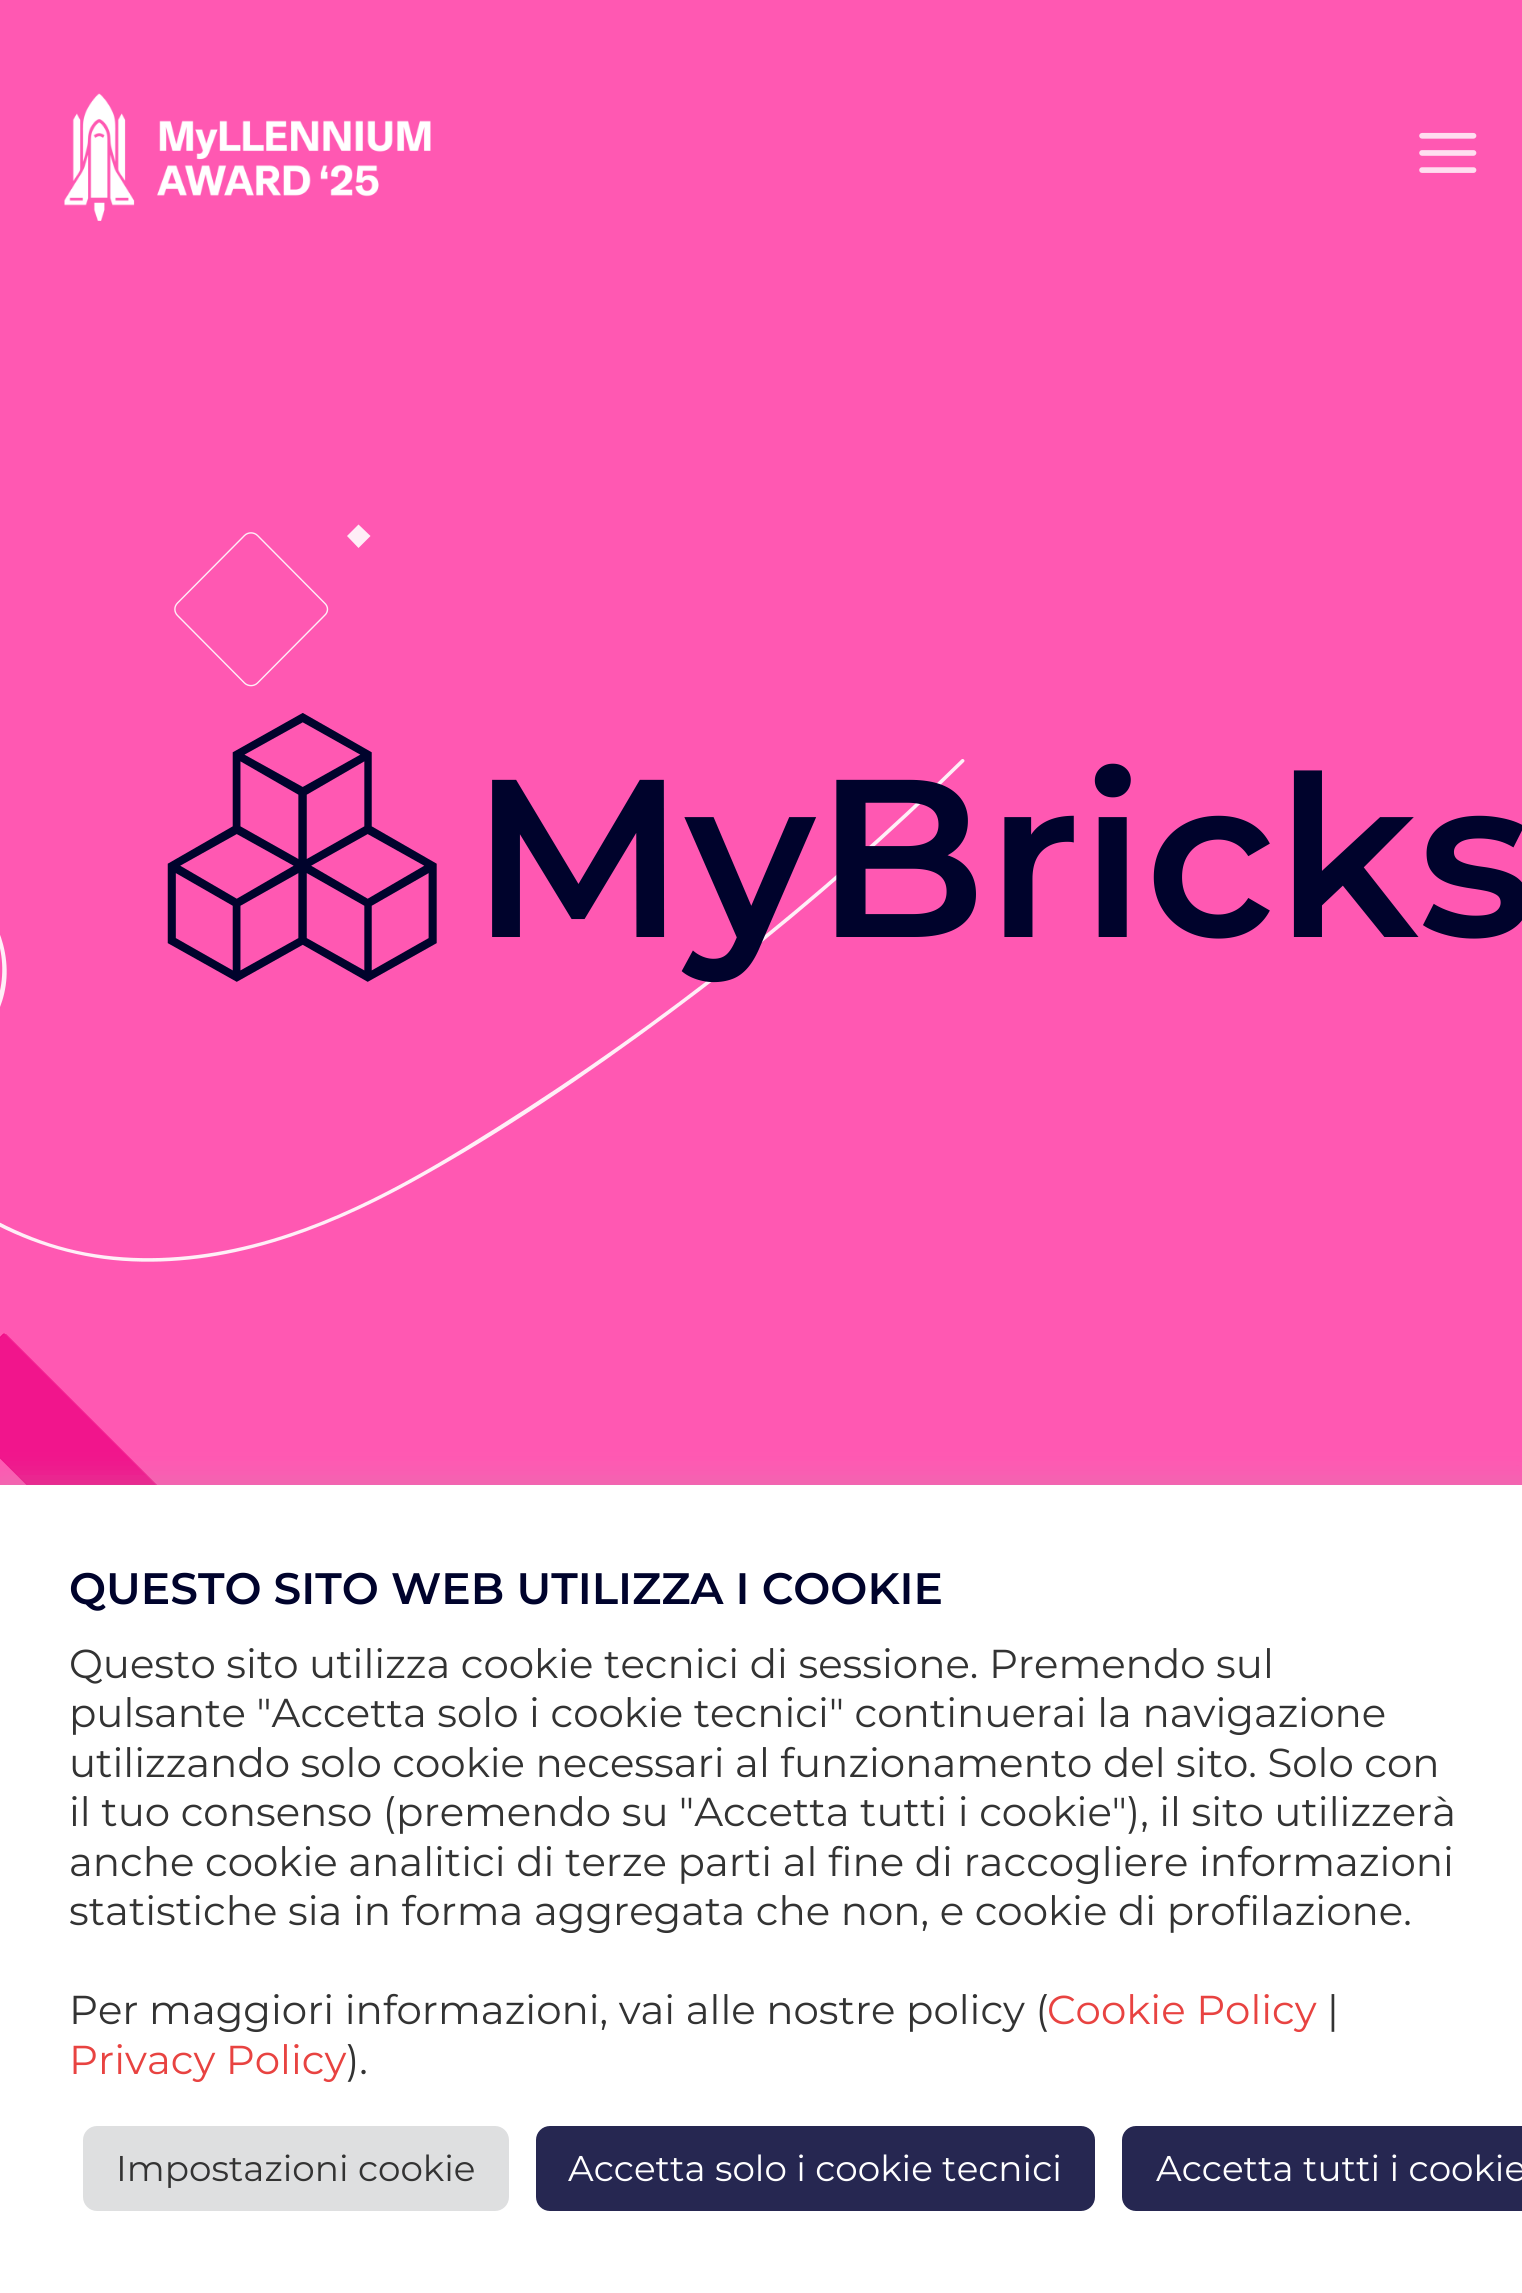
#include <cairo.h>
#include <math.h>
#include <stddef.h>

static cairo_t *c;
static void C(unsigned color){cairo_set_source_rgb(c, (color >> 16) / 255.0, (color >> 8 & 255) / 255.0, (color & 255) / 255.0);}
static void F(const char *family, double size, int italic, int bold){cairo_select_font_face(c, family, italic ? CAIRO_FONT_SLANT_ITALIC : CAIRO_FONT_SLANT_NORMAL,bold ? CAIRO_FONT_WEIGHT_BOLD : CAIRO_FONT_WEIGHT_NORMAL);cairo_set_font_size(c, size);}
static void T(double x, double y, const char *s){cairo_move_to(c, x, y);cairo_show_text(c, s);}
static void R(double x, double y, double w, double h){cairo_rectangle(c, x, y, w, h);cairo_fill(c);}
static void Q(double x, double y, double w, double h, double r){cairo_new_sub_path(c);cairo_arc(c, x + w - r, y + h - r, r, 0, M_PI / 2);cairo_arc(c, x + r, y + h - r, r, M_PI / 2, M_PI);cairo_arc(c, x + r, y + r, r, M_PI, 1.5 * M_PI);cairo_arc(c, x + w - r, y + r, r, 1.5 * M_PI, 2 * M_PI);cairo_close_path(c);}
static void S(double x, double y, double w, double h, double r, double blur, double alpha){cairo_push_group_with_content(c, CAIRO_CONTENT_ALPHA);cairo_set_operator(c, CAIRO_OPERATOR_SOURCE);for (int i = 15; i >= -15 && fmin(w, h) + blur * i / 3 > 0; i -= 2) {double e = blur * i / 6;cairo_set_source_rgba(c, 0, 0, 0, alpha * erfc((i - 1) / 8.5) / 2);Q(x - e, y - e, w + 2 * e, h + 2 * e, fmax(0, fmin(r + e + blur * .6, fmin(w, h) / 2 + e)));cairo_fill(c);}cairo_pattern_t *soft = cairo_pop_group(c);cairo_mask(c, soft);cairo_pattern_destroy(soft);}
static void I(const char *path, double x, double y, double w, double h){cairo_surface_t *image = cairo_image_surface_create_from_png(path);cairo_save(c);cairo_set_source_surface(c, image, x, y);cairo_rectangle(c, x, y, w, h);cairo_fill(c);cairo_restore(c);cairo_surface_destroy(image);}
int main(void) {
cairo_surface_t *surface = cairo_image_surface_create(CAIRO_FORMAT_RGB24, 1522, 2293);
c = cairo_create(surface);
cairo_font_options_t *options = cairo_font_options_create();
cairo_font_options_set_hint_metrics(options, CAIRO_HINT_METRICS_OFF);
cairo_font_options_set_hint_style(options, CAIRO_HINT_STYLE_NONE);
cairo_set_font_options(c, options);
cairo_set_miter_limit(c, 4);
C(0xff58b2);
cairo_paint(c);
I("1.png",64,93,367,128);
I("2.png",1419,132,58,41);
I("3.png",0,759,965,503);
cairo_new_path(c);
cairo_move_to(c,177.5,603);
cairo_line_to(c,244.5,535.5);
cairo_curve_to(c,248,532,254,532,257.5,535.5);
cairo_line_to(c,324.5,603);
cairo_curve_to(c,328.5,606.5,328.5,612,324.5,615.5);
cairo_line_to(c,257.5,683);
cairo_curve_to(c,254,686.5,248,686.5,244.5,683);
cairo_line_to(c,177.5,615.5);
cairo_curve_to(c,174,612,174,606.5,177.5,603);
cairo_close_path(c);
C(0xffeef7);
cairo_set_line_width(c,1.4);
cairo_stroke(c);
cairo_new_path(c);
cairo_move_to(c,347,536);
cairo_line_to(c,358.5,524.5);
cairo_line_to(c,370.5,536);
cairo_line_to(c,358.5,548);
cairo_close_path(c);
cairo_fill(c);
I("4.png",167,713,270,269);
F("Montserrat SemiBold",224.5,0,0);
C(0x00032c);
T(471,937,"MyBricks");
cairo_set_source_rgba(c,0.929,0,0.502,0.76);
cairo_new_path(c);
cairo_move_to(c,-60,1398);
cairo_line_to(c,108,1566);
cairo_line_to(c,-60,1734);
cairo_line_to(c,4,1799);
cairo_line_to(c,237,1566);
cairo_line_to(c,4,1333);
cairo_close_path(c);
cairo_fill(c);
cairo_save(c);
cairo_rectangle(c,0,1334,237,465);
cairo_clip(c);
cairo_new_path(c);
cairo_move_to(c,-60.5,1397.5);
cairo_line_to(c,107.5,1565.5);
cairo_line_to(c,-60.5,1734);
cairo_line_to(c,4.5,1798.5);
cairo_line_to(c,237,1565.5);
cairo_line_to(c,4.5,1333);
cairo_close_path(c);
cairo_set_line_width(c,.8);
cairo_stroke(c);
cairo_restore(c);
C(0xacabab);
S(0,1482,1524,809,0,14,.3);
C(0xffffff);
R(0,1485,1522,808);
F("Montserrat SemiBold",44,0,0);
C(0x00032c);
T(69,1604,"QUESTO SITO WEB UTILIZZA I COOKIE");
F("Montserrat",40.35,0,0);
C(0x333333);
T(69,1678,"Questo sito utilizza cookie tecnici di sessione. Premendo sul");
T(69,1727,"pulsante \"Accetta solo i cookie tecnici\" continuerai la navigazione");
T(69,1777,"utilizzando solo cookie necessari al funzionamento del sito. Solo con");
T(69,1826,"il tuo consenso (premendo su \"Accetta tutti i cookie\"), il sito utilizzerà");
T(69,1876,"anche cookie analitici di terze parti al fine di raccogliere informazioni");
T(69,1925,"statistiche sia in forma aggregata che non, e cookie di profilazione.");
T(69,2024,"Per maggiori informazioni, vai alle nostre policy (");
C(0xe84341);
T(1047,2024,"Cookie Policy");
C(0x333333);
T(1327,2024,"|");
C(0xe84341);
T(69,2074,"Privacy Policy");
C(0x333333);
T(346,2074,").");
C(0xdedfe0);
Q(83,2126,426,85,14);
cairo_fill(c);
F("Montserrat",35.75,0,0);
C(0x333333);
T(116,2181,"Impostazioni cookie");
C(0x262751);
Q(536,2126,559,85,14);
cairo_fill(c);
C(0xffffff);
T(568,2181,"Accetta solo i cookie tecnici");
C(0x262751);
Q(1122,2126,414,85,14);
cairo_fill(c);
C(0xffffff);
T(1156,2181,"Accetta tutti i cookie");
cairo_surface_write_to_png(surface, "o.png");
cairo_font_options_destroy(options);
cairo_destroy(c);
cairo_surface_destroy(surface);
return 0;
}
